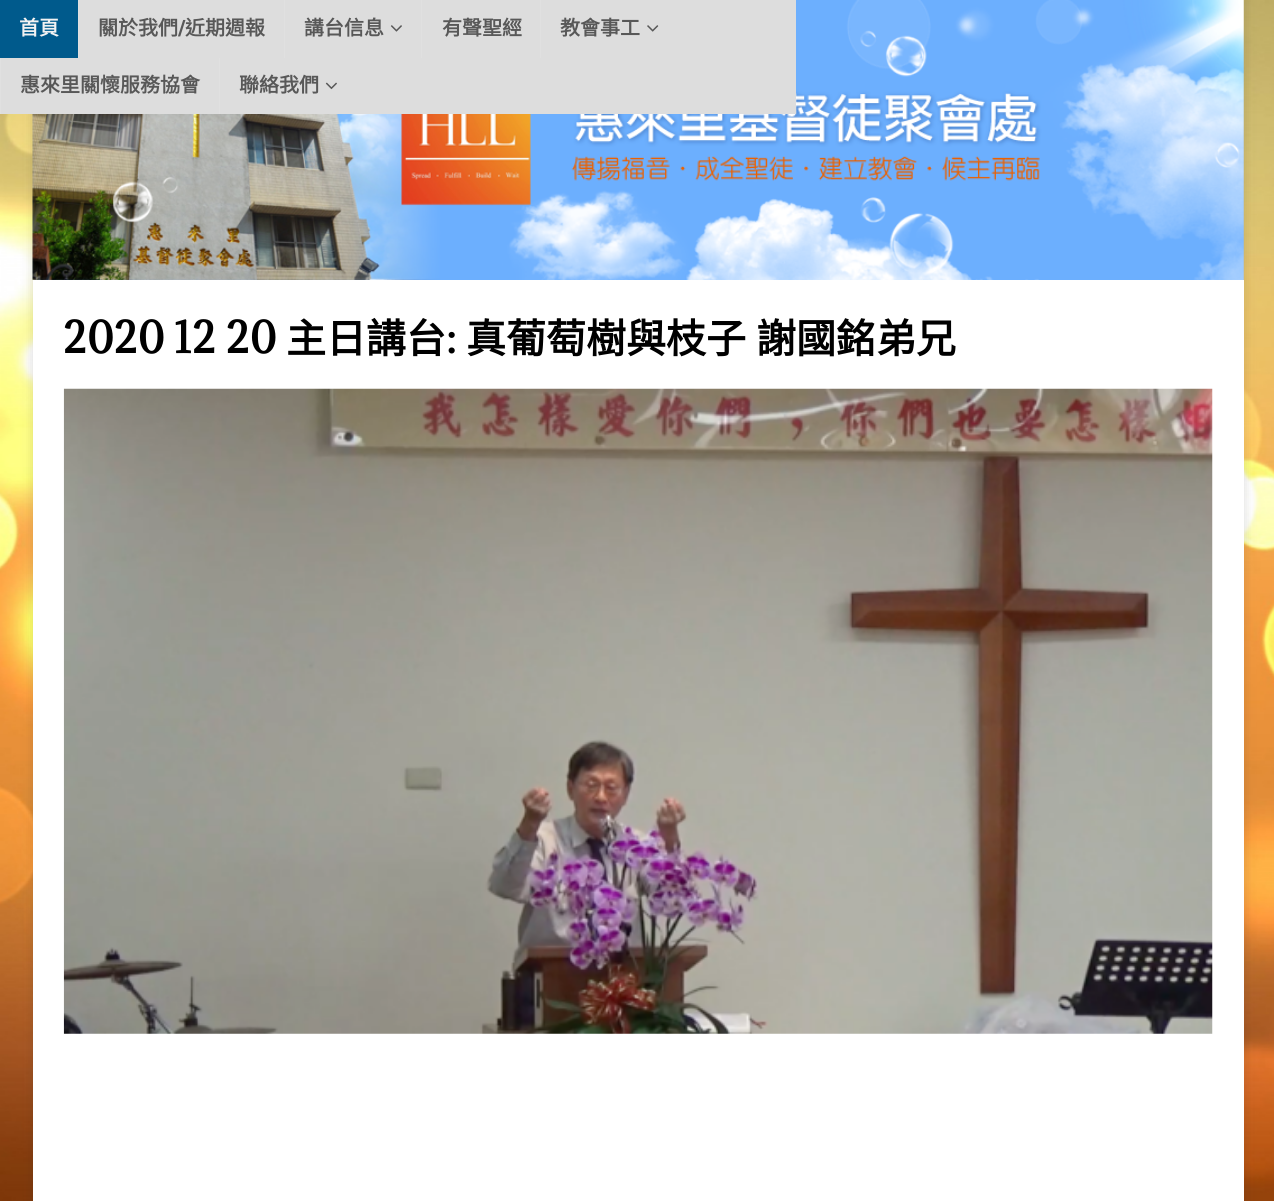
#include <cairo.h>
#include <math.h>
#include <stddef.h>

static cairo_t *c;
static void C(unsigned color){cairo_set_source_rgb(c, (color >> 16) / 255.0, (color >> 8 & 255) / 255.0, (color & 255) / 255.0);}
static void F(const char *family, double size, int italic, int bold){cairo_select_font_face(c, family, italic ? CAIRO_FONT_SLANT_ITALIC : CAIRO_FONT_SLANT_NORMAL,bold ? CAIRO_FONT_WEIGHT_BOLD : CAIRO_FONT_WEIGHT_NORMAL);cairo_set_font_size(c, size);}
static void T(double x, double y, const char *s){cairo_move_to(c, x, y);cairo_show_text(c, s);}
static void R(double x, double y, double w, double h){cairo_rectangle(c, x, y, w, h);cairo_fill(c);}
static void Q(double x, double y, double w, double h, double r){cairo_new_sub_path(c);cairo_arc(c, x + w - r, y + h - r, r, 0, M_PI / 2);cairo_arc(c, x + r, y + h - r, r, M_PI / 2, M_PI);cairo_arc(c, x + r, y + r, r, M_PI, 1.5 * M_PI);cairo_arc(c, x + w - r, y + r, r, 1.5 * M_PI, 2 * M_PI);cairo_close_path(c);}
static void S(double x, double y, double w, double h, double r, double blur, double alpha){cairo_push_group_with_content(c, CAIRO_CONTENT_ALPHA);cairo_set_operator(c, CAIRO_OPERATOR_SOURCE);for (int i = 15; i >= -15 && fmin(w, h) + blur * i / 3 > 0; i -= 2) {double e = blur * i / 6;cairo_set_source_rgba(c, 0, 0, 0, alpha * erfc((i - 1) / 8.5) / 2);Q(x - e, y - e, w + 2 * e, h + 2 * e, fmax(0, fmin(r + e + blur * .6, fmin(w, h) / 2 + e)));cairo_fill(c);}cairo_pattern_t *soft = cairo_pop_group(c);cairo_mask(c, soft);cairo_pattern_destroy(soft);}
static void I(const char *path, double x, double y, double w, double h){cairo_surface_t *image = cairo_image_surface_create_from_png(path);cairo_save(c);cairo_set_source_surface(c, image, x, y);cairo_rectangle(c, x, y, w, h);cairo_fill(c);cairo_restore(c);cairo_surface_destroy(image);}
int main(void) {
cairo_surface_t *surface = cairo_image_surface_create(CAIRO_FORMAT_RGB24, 1274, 1201);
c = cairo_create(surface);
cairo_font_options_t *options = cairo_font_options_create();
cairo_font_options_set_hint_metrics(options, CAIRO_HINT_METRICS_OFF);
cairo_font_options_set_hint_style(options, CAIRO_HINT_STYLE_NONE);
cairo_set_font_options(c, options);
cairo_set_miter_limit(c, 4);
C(0xffffff);
cairo_paint(c);
I("1.png",0,0,1274,1201);
C(0x323232);
S(33,0,1211,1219,0,6,.17);
I("2.png",32,0,1212,280);
C(0xdddddd);
R(1,0,795,114);
C(0x005a8c);
R(0,0,78,58);
F("Noto Sans CJK TC",20,0,1);
C(0xf2f2f2);
T(19,35,"首頁");
C(0xe0e0e0);
R(78,0,1,58);
C(0x585858);
T(98,35,"關於我們");
F("Sarala",20,0,1);
T(178,35,"/");
F("Noto Sans CJK TC",20,0,1);
T(185,35,"近期週報");
C(0xe0e0e0);
R(284,0,1,58);
C(0x585858);
T(304,35,"講台信息");
I("3.png",390,25,12,7);
C(0xe0e0e0);
R(421,0,1,58);
C(0x585858);
T(442,35,"有聲聖經");
C(0xe0e0e0);
R(540,0,1,58);
C(0x585858);
T(560,35,"教會事工");
I("4.png",647,25,12,7);
C(0xe0e0e0);
R(0,58,1,56);
C(0x585858);
T(20,92,"惠來里關懷服務協會");
C(0xe0e0e0);
R(219,58,1,56);
C(0x585858);
T(239,92,"聯絡我們");
I("5.png",325,82,12,8);
C(0xffffff);
R(33,280,1211,921);
F("Adamina",40,0,1);
C(0x000000);
T(63,353,"2020 12 20");
F("Noto Sans CJK TC",40,0,1);
T(286,353,"主日講台");
F("Adamina",40,0,1);
T(446,353,":");
F("Noto Sans CJK TC",40,0,1);
T(466,353,"真葡萄樹與枝子");
T(756,353,"謝國銘弟兄");
I("6.png",63,388,1150,646);
cairo_surface_write_to_png(surface, "o.png");
cairo_font_options_destroy(options);
cairo_destroy(c);
cairo_surface_destroy(surface);
return 0;
}
